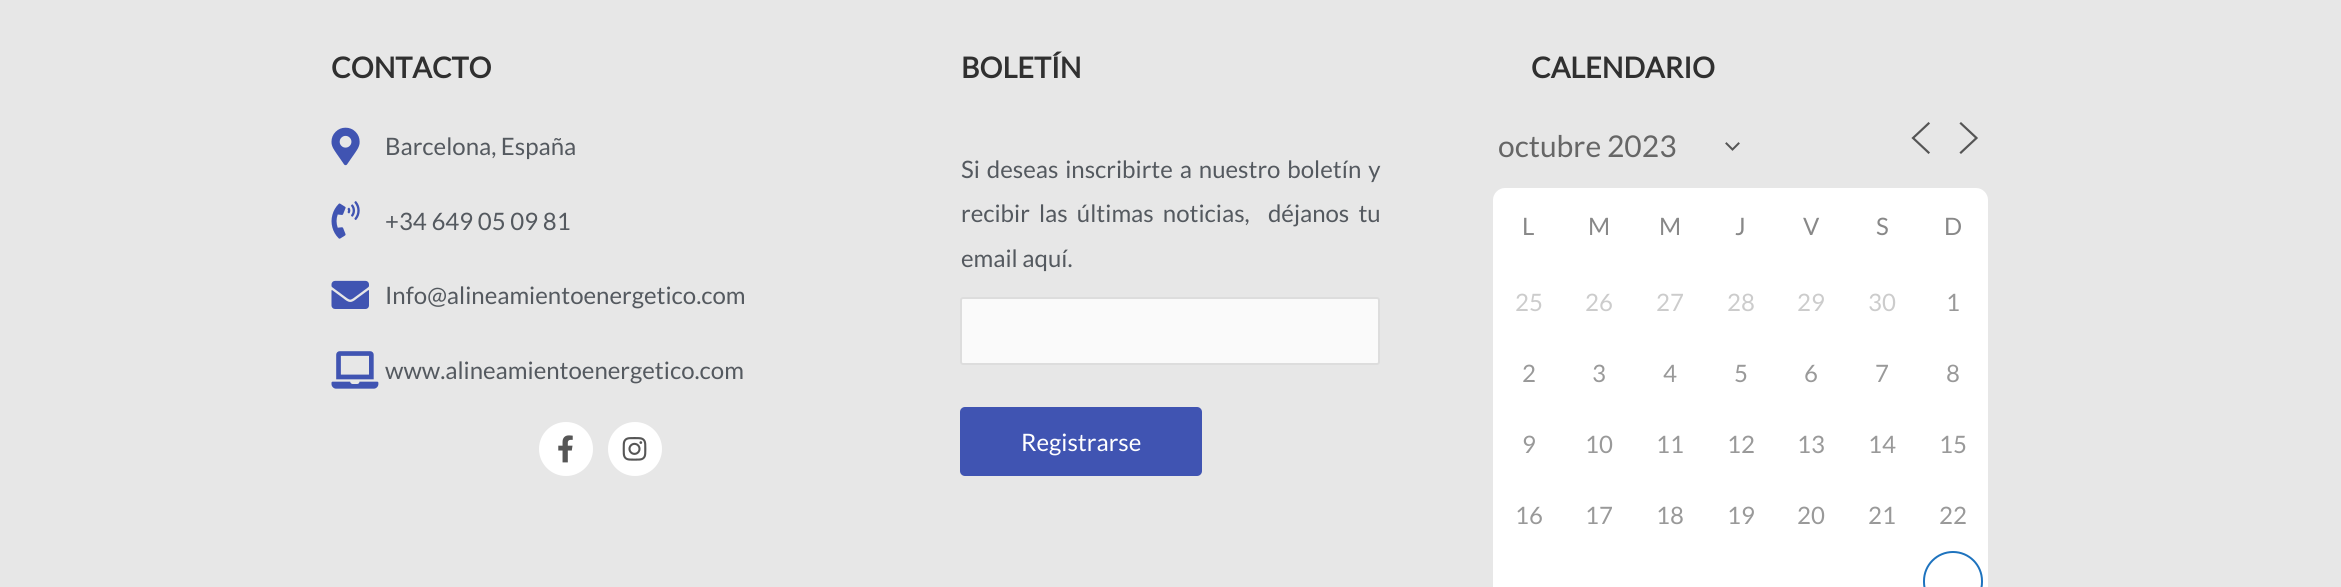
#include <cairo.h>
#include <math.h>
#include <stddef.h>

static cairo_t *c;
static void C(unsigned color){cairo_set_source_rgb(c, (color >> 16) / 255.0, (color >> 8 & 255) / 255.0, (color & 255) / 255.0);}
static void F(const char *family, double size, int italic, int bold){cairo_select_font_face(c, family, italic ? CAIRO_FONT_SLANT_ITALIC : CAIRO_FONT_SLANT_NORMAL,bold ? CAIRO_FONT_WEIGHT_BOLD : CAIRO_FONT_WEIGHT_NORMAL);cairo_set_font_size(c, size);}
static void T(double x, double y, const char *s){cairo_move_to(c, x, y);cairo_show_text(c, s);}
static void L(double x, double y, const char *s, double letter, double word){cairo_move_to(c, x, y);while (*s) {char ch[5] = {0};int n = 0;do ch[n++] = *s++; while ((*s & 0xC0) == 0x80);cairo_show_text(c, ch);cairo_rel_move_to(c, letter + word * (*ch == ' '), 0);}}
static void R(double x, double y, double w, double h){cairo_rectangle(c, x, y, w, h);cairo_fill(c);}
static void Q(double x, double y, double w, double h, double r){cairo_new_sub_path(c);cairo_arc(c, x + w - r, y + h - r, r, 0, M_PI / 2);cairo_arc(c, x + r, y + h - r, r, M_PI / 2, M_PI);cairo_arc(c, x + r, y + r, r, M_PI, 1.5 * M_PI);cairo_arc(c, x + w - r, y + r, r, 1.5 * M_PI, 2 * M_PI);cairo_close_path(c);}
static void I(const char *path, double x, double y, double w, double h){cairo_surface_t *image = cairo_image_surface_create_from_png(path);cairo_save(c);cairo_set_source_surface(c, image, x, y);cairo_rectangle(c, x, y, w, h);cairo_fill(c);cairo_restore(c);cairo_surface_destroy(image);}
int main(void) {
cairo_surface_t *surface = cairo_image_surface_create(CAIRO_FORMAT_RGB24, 2341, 587);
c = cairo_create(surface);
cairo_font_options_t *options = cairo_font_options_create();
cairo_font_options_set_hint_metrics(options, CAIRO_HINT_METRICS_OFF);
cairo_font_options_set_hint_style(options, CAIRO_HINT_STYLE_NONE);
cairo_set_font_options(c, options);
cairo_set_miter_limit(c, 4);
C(0xe7e7e7);
cairo_paint(c);
F("Lato",28.75,0,1);
C(0x303030);
T(331,78,"CONTACTO");
I("1.png",331,127,29,39);
F("Lato",24,0,0);
C(0x54595f);
T(385,155,"Barcelona, España");
I("2.png",331,201,29,38);
T(385,230,"+34 649 05 09 81");
I("3.png",331,280,38,29);
T(385,304,"Info@alineamientoenergetico.com");
I("4.png",331,351,48,38);
T(385,379,"www.alineamientoenergetico.com");
C(0xffffff);
cairo_new_path(c);
cairo_arc(c,566,449,27,0,2 * M_PI);
cairo_fill(c);
I("5.png",558,435,15,28);
cairo_arc(c,635,449,27,0,2 * M_PI);
cairo_fill(c);
I("6.png",622,437,25,24);
F("Lato",28.75,0,1);
C(0x303030);
T(961,78,"BOLETÍN");
F("Lato",24,0,0);
C(0x54595f);
L(961,178,"Si deseas inscribirte a nuestro boletín y",0,2.25);
L(961,222,"recibir las últimas noticias,  déjanos tu",0,4.5);
T(961,267,"email aquí.");
C(0xfafafa);
Q(961,298,418,66,2);
cairo_fill_preserve(c);
C(0xdddddd);
cairo_stroke(c);
C(0x4054b2);
Q(960,407,242,69,5);
cairo_fill(c);
C(0xffffff);
T(1021,451,"Registrarse");
F("Lato",28.75,0,1);
C(0x303030);
T(1531,78,"CALENDARIO");
cairo_new_path(c);
cairo_move_to(c,1726.5,143.5);
cairo_line_to(c,1732.5,149.5);
cairo_line_to(c,1738.5,143.5);
C(0x555555);
cairo_set_line_cap(c,CAIRO_LINE_CAP_SQUARE);
cairo_stroke(c);
F("Lato",30,0,0);
C(0x666666);
T(1498,157,"octubre 2023");
cairo_new_path(c);
cairo_move_to(c,1928.5,152.5);
cairo_line_to(c,1913,138);
cairo_line_to(c,1928.5,123.5);
C(0x555555);
cairo_set_line_width(c,2.2);
cairo_stroke(c);
cairo_new_path(c);
cairo_move_to(c,1961,152.5);
cairo_line_to(c,1976.5,138);
cairo_line_to(c,1961,123.5);
cairo_stroke(c);
C(0xffffff);
cairo_new_path(c);
cairo_move_to(c,1505,188);
cairo_line_to(c,1976,188);
cairo_curve_to(c,1982.5,188,1988,193.5,1988,200);
cairo_line_to(c,1988,263);
cairo_line_to(c,1493,263);
cairo_line_to(c,1493,200);
cairo_curve_to(c,1493,193.5,1498.5,188,1505,188);
cairo_close_path(c);
cairo_fill(c);
F("Lato",24,0,0);
C(0x888888);
T(1522,235,"L");
T(1588,235,"M");
T(1659,235,"M");
T(1735,235,"J");
T(1803,235,"V");
T(1876,235,"S");
T(1944,235,"D");
C(0xffffff);
R(1493,263,495,324);
C(0xcccccc);
T(1515,311,"25");
T(1585,311,"26");
T(1656,311,"27");
T(1727,311,"28");
T(1797,311,"29");
T(1868,311,"30");
C(0x999999);
T(1946,311,"1");
T(1522,382,"2");
T(1592,382,"3");
T(1663,382,"4");
T(1734,382,"5");
T(1804,382,"6");
T(1875,382,"7");
T(1946,382,"8");
T(1522,453,"9");
T(1585,453,"10");
T(1656,453,"11");
T(1727,453,"12");
T(1797,453,"13");
T(1868,453,"14");
T(1939,453,"15");
T(1515,524,"16");
T(1585,524,"17");
T(1656,524,"18");
T(1727,524,"19");
T(1797,524,"20");
T(1868,524,"21");
T(1939,524,"22");
Q(1924,552,58,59,29);
C(0x1e73be);
cairo_set_line_width(c,2);
cairo_set_line_cap(c,CAIRO_LINE_CAP_BUTT);
cairo_stroke(c);
cairo_surface_write_to_png(surface, "o.png");
cairo_font_options_destroy(options);
cairo_destroy(c);
cairo_surface_destroy(surface);
return 0;
}
